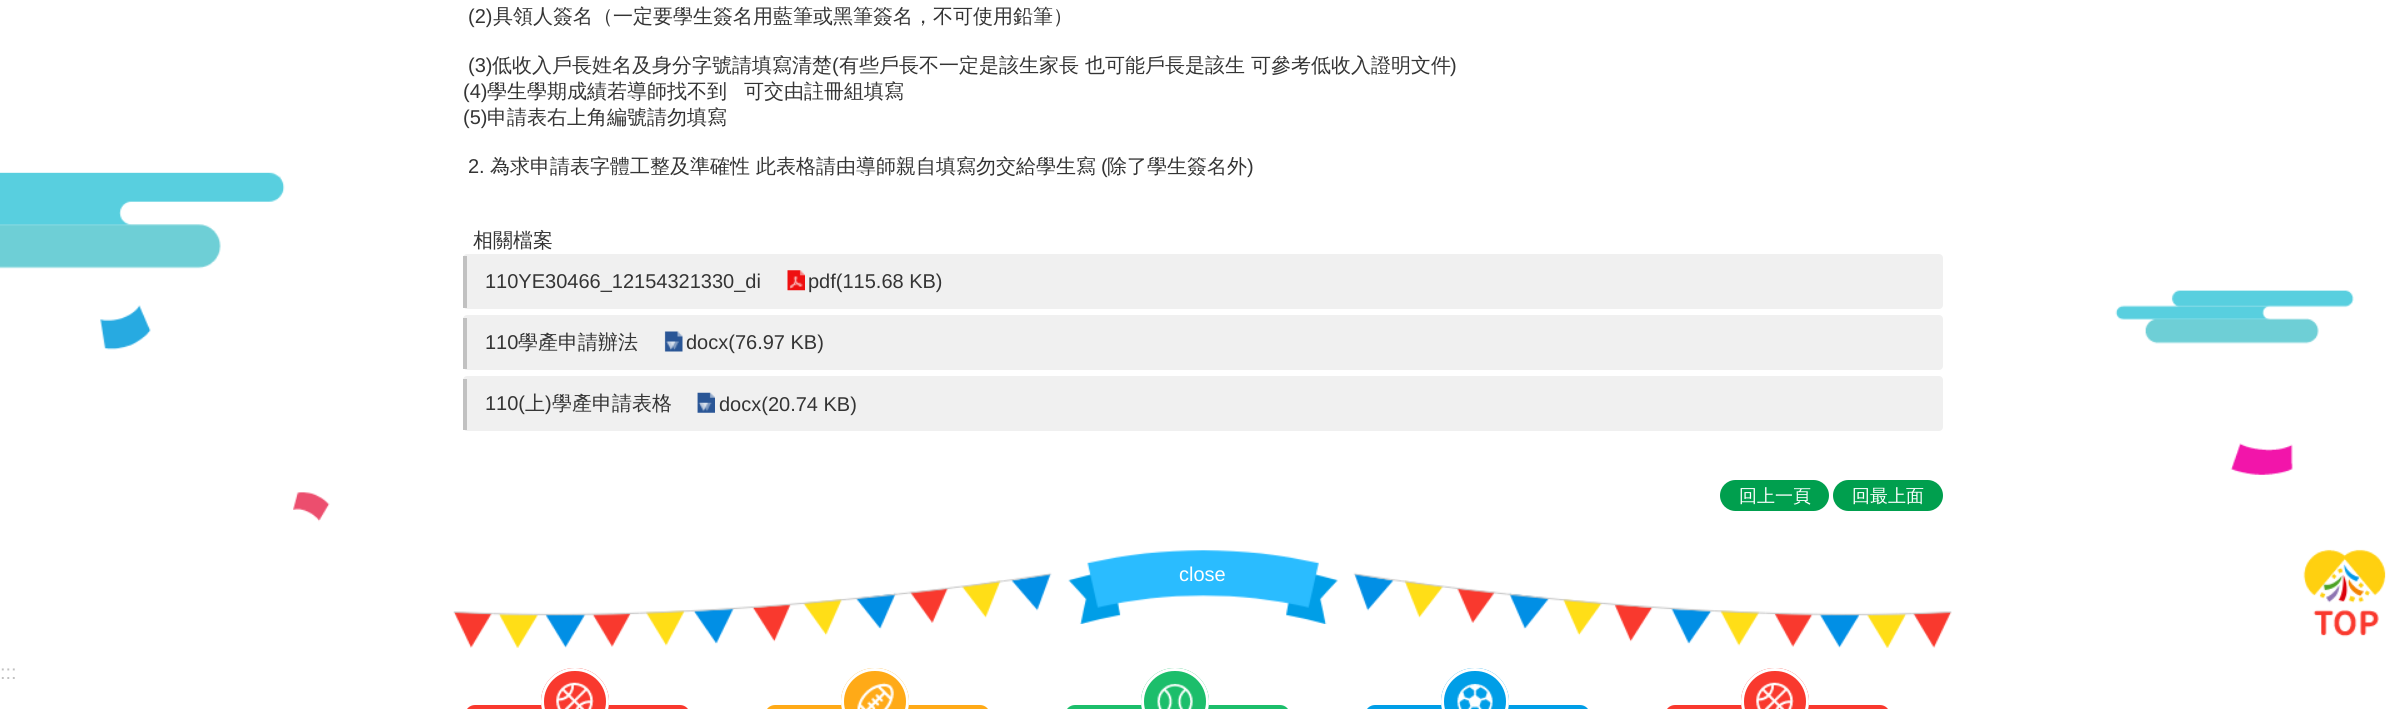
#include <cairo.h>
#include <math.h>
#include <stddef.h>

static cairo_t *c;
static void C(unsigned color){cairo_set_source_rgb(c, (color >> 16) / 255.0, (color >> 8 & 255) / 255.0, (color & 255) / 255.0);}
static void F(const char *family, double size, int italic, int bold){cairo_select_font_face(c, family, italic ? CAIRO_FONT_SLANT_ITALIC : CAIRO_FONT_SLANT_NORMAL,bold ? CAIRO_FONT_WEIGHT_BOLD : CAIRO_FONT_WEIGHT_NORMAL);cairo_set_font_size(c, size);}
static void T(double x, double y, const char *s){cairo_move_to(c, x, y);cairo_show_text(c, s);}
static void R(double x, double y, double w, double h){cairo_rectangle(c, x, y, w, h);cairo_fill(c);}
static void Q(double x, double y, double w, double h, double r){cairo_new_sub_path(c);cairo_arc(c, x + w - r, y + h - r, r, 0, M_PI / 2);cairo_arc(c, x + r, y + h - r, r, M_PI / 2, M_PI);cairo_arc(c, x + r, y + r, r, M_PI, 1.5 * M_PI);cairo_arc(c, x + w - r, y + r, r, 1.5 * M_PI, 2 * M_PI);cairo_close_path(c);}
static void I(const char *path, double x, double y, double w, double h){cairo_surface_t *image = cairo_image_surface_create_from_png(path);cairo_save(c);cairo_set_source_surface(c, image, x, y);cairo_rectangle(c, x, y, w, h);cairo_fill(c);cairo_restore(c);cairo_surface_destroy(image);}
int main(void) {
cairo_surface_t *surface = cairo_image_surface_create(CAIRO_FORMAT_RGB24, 2405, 709);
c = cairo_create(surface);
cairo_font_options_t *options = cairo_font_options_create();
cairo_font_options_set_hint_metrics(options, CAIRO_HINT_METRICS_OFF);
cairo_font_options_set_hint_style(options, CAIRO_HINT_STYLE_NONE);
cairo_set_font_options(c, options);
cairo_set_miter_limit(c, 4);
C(0xffffff);
cairo_paint(c);
I("1.png",0,172,2354,350);
C(0xffffff);
R(685,190,1250,332);
F("Liberation Sans",20,0,0);
C(0x343434);
T(468,23,"(2)");
F("WenQuanYi Zen Hei Medium",20,0,0);
T(493,23,"具領人簽名（一定要學生簽名用藍筆或黑筆簽名，不可使用鉛筆）");
F("Liberation Sans",20,0,0);
T(468,72,"(3)");
F("WenQuanYi Zen Hei Medium",20,0,0);
T(492,72,"低收入戶長姓名及身分字號請填寫清楚");
F("Liberation Sans",20,0,0);
T(832,72,"(");
F("WenQuanYi Zen Hei Medium",20,0,0);
T(839,72,"有些戶長不一定是該生家長 也可能戶長是該生 可參考低收入證明文件");
F("Liberation Sans",20,0,0);
T(1450,72,")");
T(463,98,"(4)");
F("WenQuanYi Zen Hei Medium",20,0,0);
T(487,98,"學生學期成績若導師找不到");
T(744,98,"可交由註冊組填寫");
F("Liberation Sans",20,0,0);
T(463,124,"(5)");
F("WenQuanYi Zen Hei Medium",20,0,0);
T(487,124,"申請表右上角編號請勿填寫");
F("Liberation Sans",20,0,0);
T(468,173,"2.");
F("WenQuanYi Zen Hei Medium",20,0,0);
T(490,173,"為求申請表字體工整及準確性 此表格請由導師親自填寫勿交給學生寫");
F("Liberation Sans",20,0,0);
T(1101,173,"(");
F("WenQuanYi Zen Hei Medium",20,0,0);
T(1107,173,"除了學生簽名外");
F("Liberation Sans",20,0,0);
T(1247,173,")");
F("WenQuanYi Zen Hei Medium",20,0,0);
T(473,247,"相關檔案");
C(0xf0f0f0);
Q(463,254,1480,55,4);
cairo_fill(c);
C(0xc1c1c1);
R(463,256,4,52);
F("Liberation Sans",20,0,0);
C(0x343434);
T(485,288,"110YE30466_12154321330_di");
I("2.png",787,270,18,21);
T(808,288,"pdf(115.68 KB)");
C(0xf0f0f0);
Q(463,315,1480,55,4);
cairo_fill(c);
C(0xc1c1c1);
R(463,318,4,51);
C(0x343434);
T(485,349,"110");
F("WenQuanYi Zen Hei Medium",20,0,0);
T(518,349,"學產申請辦法");
I("3.png",664,331,19,21);
F("Liberation Sans",20,0,0);
T(686,349,"docx(76.97 KB)");
C(0xf0f0f0);
Q(463,376,1480,55,4);
cairo_fill(c);
C(0xc1c1c1);
R(463,379,4,51);
C(0x343434);
T(485,410,"110(");
F("WenQuanYi Zen Hei Medium",20,0,0);
T(525,410,"上");
F("Liberation Sans",20,0,0);
T(545,410,")");
F("WenQuanYi Zen Hei Medium",20,0,0);
T(552,410,"學產申請表格");
I("4.png",697,392,18,21);
F("Liberation Sans",20,0,0);
T(719,411,"docx(20.74 KB)");
C(0x009f4e);
Q(1720,480,109,31,15.5);
cairo_fill(c);
F("WenQuanYi Zen Hei Medium",18,0,0);
C(0xffffff);
T(1739,502,"回上一頁");
C(0x009f4e);
Q(1833,480,110,31,15.5);
cairo_fill(c);
C(0xffffff);
T(1852,502,"回最上面");
I("5.png",453,572,599,76);
I("6.png",1068,550,270,74);
F("Liberation Sans",20,0,0);
T(1179,581,"close");
I("7.png",1353,572,599,76);
C(0xc1c1c1);
T(0,679,":::");
C(0xf9392e);
Q(465,705,225,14,10);
cairo_fill(c);
Q(541,668,68,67,33.5);
cairo_fill(c);
I("8.png",556,682,38,27);
Q(542.5,669.5,65,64,32);
C(0xffffff);
cairo_set_line_width(c,3);
cairo_stroke(c);
C(0xffaa17);
Q(765,705,225,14,10);
cairo_fill(c);
Q(841,668,68,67,33.5);
cairo_fill(c);
I("9.png",857,682,37,27);
Q(842.5,669.5,65,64,32);
C(0xffffff);
cairo_stroke(c);
C(0x1cbe6b);
Q(1065,705,225,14,10);
cairo_fill(c);
Q(1141,668,68,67,33.5);
cairo_fill(c);
I("10.png",1157,683,36,26);
Q(1142.5,669.5,65,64,32);
C(0xffffff);
cairo_stroke(c);
C(0x009ee7);
Q(1365,705,225,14,10);
cairo_fill(c);
Q(1441,668,68,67,33.5);
cairo_fill(c);
I("11.png",1457,683,36,26);
Q(1442.5,669.5,65,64,32);
C(0xffffff);
cairo_stroke(c);
C(0xf9392e);
Q(1665,705,225,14,10);
cairo_fill(c);
Q(1741,668,68,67,33.5);
cairo_fill(c);
I("12.png",1756,682,38,27);
Q(1742.5,669.5,65,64,32);
C(0xffffff);
cairo_stroke(c);
I("13.png",2303,549,83,88);
cairo_surface_write_to_png(surface, "o.png");
cairo_font_options_destroy(options);
cairo_destroy(c);
cairo_surface_destroy(surface);
return 0;
}
